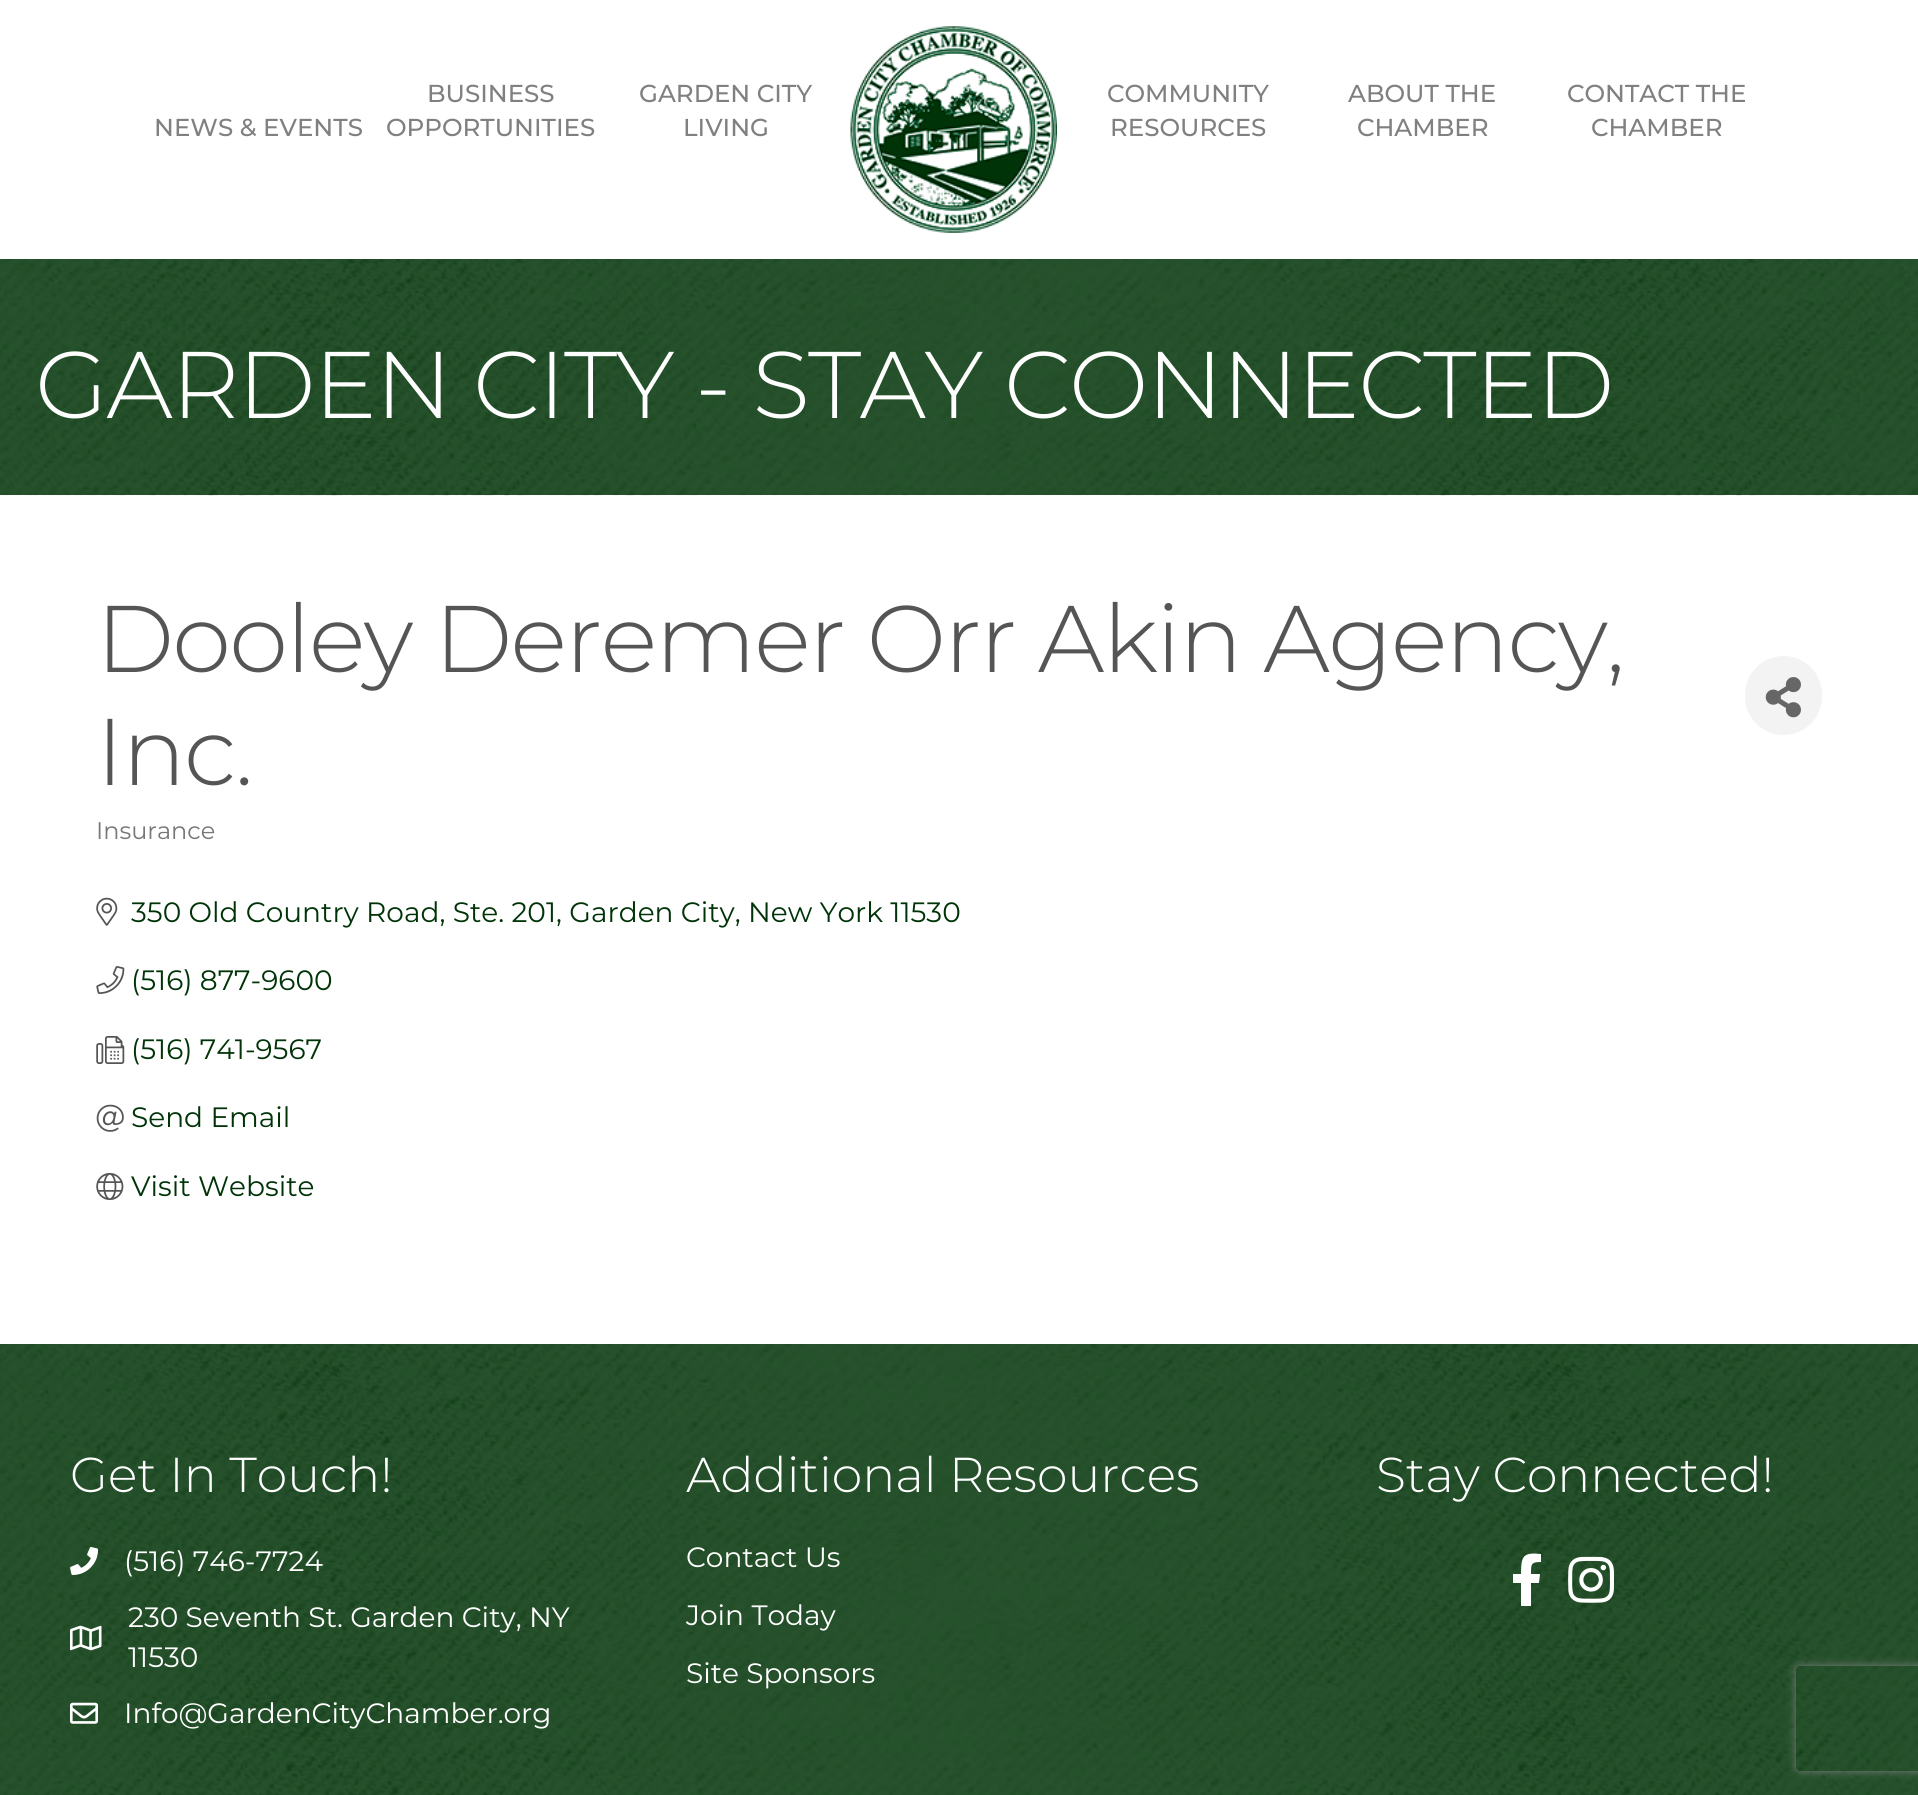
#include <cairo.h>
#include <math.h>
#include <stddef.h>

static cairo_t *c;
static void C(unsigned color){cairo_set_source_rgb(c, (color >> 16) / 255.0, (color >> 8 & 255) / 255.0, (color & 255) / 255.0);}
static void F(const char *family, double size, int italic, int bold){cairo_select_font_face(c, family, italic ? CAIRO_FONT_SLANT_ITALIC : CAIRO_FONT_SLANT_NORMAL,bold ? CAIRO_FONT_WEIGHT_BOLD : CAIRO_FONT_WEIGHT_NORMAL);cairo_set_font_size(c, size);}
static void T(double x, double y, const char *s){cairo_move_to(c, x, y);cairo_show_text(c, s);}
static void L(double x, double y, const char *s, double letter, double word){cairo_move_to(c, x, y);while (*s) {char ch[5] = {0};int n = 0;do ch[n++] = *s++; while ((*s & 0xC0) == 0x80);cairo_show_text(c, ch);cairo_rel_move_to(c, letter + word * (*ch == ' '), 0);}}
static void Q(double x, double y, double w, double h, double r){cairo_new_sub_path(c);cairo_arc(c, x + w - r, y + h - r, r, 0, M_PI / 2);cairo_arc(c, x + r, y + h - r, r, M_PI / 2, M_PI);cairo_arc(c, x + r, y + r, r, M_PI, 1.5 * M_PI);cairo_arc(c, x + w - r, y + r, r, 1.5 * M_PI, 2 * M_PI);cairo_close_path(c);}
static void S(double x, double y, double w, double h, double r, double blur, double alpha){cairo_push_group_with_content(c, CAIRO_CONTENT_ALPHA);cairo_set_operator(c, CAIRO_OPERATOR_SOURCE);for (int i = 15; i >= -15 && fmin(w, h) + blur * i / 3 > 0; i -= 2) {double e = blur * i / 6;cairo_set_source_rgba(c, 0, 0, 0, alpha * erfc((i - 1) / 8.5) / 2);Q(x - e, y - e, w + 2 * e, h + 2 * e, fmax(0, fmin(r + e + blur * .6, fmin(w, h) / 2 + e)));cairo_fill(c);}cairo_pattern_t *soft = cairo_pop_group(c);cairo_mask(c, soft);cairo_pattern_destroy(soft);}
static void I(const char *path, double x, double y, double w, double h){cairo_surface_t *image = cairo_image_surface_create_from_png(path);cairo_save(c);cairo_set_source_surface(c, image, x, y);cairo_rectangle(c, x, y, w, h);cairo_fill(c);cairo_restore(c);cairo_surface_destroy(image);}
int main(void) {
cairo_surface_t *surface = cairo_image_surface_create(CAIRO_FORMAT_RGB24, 1918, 1795);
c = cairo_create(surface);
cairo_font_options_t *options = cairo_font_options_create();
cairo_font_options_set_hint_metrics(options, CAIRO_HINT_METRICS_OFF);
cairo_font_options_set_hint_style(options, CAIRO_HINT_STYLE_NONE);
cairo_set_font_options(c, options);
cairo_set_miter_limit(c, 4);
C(0xffffff);
cairo_paint(c);
F("Montserrat Medium",24.5,0,0);
C(0x808080);
T(154,136,"NEWS & EVENTS");
T(427,102,"BUSINESS");
T(386,136,"OPPORTUNITIES");
T(639,102,"GARDEN CITY");
T(683,136,"LIVING");
I("1.png",850,26,207,207);
T(1107,102,"COMMUNITY");
T(1110,136,"RESOURCES");
T(1348,102,"ABOUT THE");
T(1357,136,"CHAMBER");
T(1567,102,"CONTACT THE");
T(1591,136,"CHAMBER");
I("2.png",0,259,1918,237);
F("Montserrat Light",94.5,0,0);
C(0xffffff);
L(35,418,"GARDEN CITY - STAY CONNECTED",-1.75,0);
C(0x555555);
L(96,672,"Dooley Deremer Orr Akin Agency,",-1.75,0);
L(96,785,"Inc.",-1.75,0);
C(0xf3f3f3);
Q(1745,656,77,79,38.5);
cairo_fill(c);
I("3.png",1765,677,36,41);
F("Montserrat",24,0,0);
C(0x777777);
T(96,839,"Insurance");
I("4.png",96,897,22,29);
F("Montserrat",28,0,0);
C(0x003307);
T(131,922,"350 Old Country Road, Ste. 201, Garden City, New York 11530");
I("5.png",96,966,29,28);
T(131,990,"(516) 877-9600");
I("6.png",96,1036,29,28);
T(131,1059,"(516) 741-9567");
I("7.png",96,1104,28,28);
T(131,1127,"Send Email");
I("8.png",96,1172,28,29);
T(131,1196,"Visit Website");
I("9.png",0,1344,1918,451);
F("Montserrat Light",49,0,0);
C(0xffffff);
T(70,1492,"Get In Touch!");
I("10.png",70,1547,29,28);
F("Montserrat",28,0,0);
T(124,1571,"(516) 746-7724");
I("11.png",70,1625,32,26);
T(128,1627,"230 Seventh St. Garden City, NY");
T(128,1667,"11530");
I("12.png",70,1702,28,22);
T(124,1723,"Info@GardenCityChamber.org");
F("Montserrat Light",49,0,0);
T(686,1492,"Additional Resources");
F("Montserrat",28,0,0);
T(686,1567,"Contact Us");
T(686,1625,"Join Today");
T(686,1683,"Site Sponsors");
F("Montserrat Light",49,0,0);
T(1376,1492,"Stay Connected!");
cairo_new_path(c);
cairo_move_to(c,1539,1583);
cairo_line_to(c,1531,1583);
cairo_line_to(c,1531,1606);
cairo_line_to(c,1521,1606);
cairo_line_to(c,1521,1583);
cairo_line_to(c,1513,1583);
cairo_line_to(c,1513,1574);
cairo_line_to(c,1521,1574);
cairo_curve_to(c,1521,1556,1523,1552,1541,1554);
cairo_line_to(c,1541,1562);
cairo_curve_to(c,1531,1562,1531,1564,1531,1574);
cairo_line_to(c,1540,1574);
cairo_close_path(c);
cairo_fill(c);
I("13.png",1568,1556,47,47);
cairo_save(c);
cairo_set_fill_rule(c,CAIRO_FILL_RULE_EVEN_ODD);
cairo_new_path(c);
cairo_move_to(c,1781,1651);
cairo_line_to(c,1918,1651);
cairo_line_to(c,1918,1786);
cairo_line_to(c,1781,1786);
cairo_close_path(c);
cairo_move_to(c,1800,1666);
cairo_line_to(c,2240,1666);
cairo_curve_to(c,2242,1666,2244,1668,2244,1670);
cairo_line_to(c,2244,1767);
cairo_curve_to(c,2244,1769,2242,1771,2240,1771);
cairo_line_to(c,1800,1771);
cairo_curve_to(c,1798,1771,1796,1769,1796,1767);
cairo_line_to(c,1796,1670);
cairo_curve_to(c,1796,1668,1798,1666,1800,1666);
cairo_close_path(c);
cairo_clip(c);
C(0x808080);
S(1796,1666,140,105,4,4.5,1);
cairo_restore(c);
cairo_surface_write_to_png(surface, "o.png");
cairo_font_options_destroy(options);
cairo_destroy(c);
cairo_surface_destroy(surface);
return 0;
}
